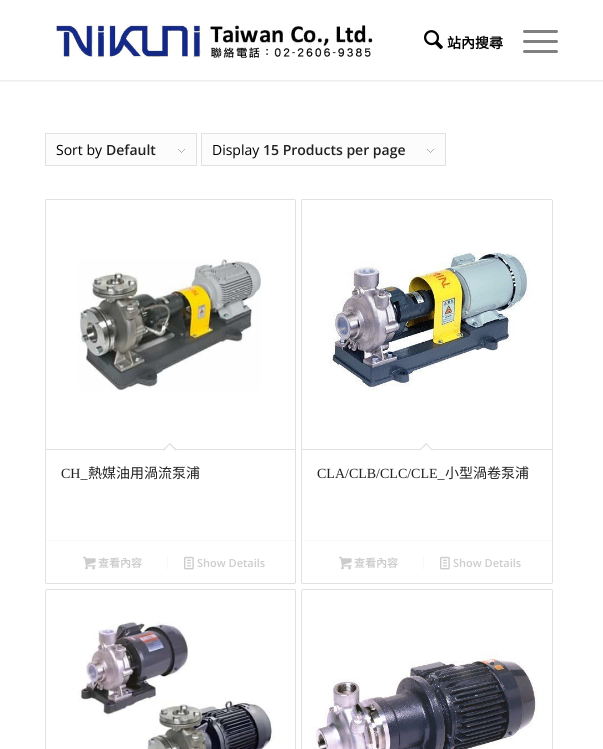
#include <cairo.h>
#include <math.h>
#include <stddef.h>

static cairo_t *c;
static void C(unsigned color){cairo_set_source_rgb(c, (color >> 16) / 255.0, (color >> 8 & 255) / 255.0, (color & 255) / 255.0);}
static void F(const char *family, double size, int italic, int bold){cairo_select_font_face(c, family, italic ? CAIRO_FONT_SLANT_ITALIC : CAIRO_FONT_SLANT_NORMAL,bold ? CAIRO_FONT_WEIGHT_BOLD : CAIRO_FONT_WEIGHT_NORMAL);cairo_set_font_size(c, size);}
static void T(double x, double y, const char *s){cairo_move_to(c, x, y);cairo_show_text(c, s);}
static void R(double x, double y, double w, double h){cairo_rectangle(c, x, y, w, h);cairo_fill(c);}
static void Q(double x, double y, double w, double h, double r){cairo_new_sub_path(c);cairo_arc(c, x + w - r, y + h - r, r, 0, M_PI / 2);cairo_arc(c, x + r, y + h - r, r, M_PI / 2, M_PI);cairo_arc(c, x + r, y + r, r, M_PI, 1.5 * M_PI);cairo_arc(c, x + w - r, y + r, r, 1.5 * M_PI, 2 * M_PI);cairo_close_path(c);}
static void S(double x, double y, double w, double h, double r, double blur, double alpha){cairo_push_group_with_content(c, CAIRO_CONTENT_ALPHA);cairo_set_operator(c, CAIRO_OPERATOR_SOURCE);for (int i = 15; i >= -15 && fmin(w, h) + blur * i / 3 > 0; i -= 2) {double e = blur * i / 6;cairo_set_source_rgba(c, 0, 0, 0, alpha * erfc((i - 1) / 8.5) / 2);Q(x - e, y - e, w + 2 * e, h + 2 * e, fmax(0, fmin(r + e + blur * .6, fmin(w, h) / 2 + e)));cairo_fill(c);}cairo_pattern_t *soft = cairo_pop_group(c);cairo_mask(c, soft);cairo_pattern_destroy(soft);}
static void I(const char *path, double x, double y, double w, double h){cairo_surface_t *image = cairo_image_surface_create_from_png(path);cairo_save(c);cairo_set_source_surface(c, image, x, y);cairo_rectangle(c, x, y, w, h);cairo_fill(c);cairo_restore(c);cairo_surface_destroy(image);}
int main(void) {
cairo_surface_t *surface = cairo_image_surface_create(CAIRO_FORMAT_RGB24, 603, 749);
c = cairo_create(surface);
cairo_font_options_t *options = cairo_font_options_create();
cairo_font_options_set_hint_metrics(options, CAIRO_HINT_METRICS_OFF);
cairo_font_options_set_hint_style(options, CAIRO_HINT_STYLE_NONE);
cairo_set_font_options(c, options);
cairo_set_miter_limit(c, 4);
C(0xffffff);
cairo_paint(c);
C(0x000000);
S(-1,-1,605,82,0,1,.1);
C(0xffffff);
R(0,0,603,80);
I("1.png",55,13,330,47);
I("2.png",424,30,19,20);
F("Noto Sans CJK TC",14,0,1);
C(0x000000);
T(447,48,"站內搜尋");
C(0x808080);
Q(523,40,35,3,1.5);
cairo_fill(c);
Q(523,30,35,3,1.5);
cairo_fill(c);
Q(523,50,35,3,1.5);
cairo_fill(c);
C(0xfcfcfc);
R(46,134,150,31);
I("3.png",178,149,7,4);
cairo_rectangle(c,45.5,133.5,151,32);
C(0xe1e1e1);
cairo_set_line_width(c,1);
cairo_stroke(c);
F("Open Sans",14,0,0);
C(0x000000);
T(56,155,"Sort by");
F("Open Sans SemiBold",14,0,0);
C(0x222222);
T(106,155,"Default");
C(0xfcfcfc);
R(202,134,243,31);
I("3.png",427,149,7,4);
cairo_rectangle(c,201.5,133.5,244,32);
C(0xe1e1e1);
cairo_stroke(c);
F("Open Sans",14,0,0);
C(0x000000);
T(212,155,"Display");
F("Open Sans SemiBold",14,0,0);
C(0x222222);
T(263,155,"15 Products per page");
Q(45.5,199.5,250,384,1.5);
C(0xe1e1e1);
cairo_stroke(c);
I("4.png",78,258,183,133);
R(46,449,249,1);
C(0xffffff);
cairo_new_path(c);
cairo_move_to(c,170,443);
cairo_line_to(c,177,450);
cairo_line_to(c,170,457);
cairo_line_to(c,162.5,450);
cairo_close_path(c);
cairo_fill(c);
C(0xe1e1e1);
cairo_new_path(c);
cairo_move_to(c,170,443);
cairo_line_to(c,177,450);
cairo_line_to(c,176,451);
cairo_line_to(c,169,444);
cairo_close_path(c);
cairo_fill(c);
cairo_new_path(c);
cairo_move_to(c,170,443);
cairo_line_to(c,170.5,444);
cairo_line_to(c,163.5,451);
cairo_line_to(c,162.5,450);
cairo_close_path(c);
cairo_fill(c);
F("Liberation Serif",14,0,0);
C(0x222222);
T(61,478,"CH_");
F("Noto Sans CJK TC",14,0,0);
T(88,478,"熱媒油用渦流泵浦");
C(0xf9f9f9);
R(46,540,249,1);
I("5.png",83,556,13,14);
F("Noto Sans CJK TC",11,0,1);
C(0xcccccc);
T(98,567,"查看內容");
C(0xf9f9f9);
R(167,556,1,14);
I("6.png",184,556,10,14);
F("Open Sans SemiBold",11,0,0);
C(0xcccccc);
T(197,567,"Show Details");
Q(301.5,199.5,251,384,1.5);
C(0xe1e1e1);
cairo_stroke(c);
I("7.png",329,252,202,140);
R(302,449,250,1);
C(0xffffff);
cairo_new_path(c);
cairo_move_to(c,426,443);
cairo_line_to(c,433,450);
cairo_line_to(c,426,457);
cairo_line_to(c,419,450);
cairo_close_path(c);
cairo_fill(c);
C(0xe1e1e1);
cairo_new_path(c);
cairo_move_to(c,426,443);
cairo_line_to(c,433,450);
cairo_line_to(c,432.5,451);
cairo_line_to(c,425.5,444);
cairo_close_path(c);
cairo_fill(c);
cairo_new_path(c);
cairo_move_to(c,426,443);
cairo_line_to(c,427,444);
cairo_line_to(c,419.5,451);
cairo_line_to(c,419,450);
cairo_close_path(c);
cairo_fill(c);
F("Liberation Serif",14,0,0);
C(0x222222);
T(317,478,"CLA/CLB/CLC/CLE_");
F("Noto Sans CJK TC",14,0,0);
T(445,478,"小型渦卷泵浦");
C(0xf9f9f9);
R(302,540,250,1);
I("5.png",339,556,13,14);
F("Noto Sans CJK TC",11,0,1);
C(0xcccccc);
T(354,567,"查看內容");
C(0xf9f9f9);
R(423,556,1,14);
I("6.png",440,556,10,14);
F("Open Sans SemiBold",11,0,0);
C(0xcccccc);
T(453,567,"Show Details");
Q(45.5,589.5,250,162,1.5);
C(0xe1e1e1);
cairo_stroke(c);
I("8.png",78,622,199,127);
Q(301.5,589.5,251,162,1.5);
cairo_stroke(c);
I("9.png",311,652,228,97);
cairo_surface_write_to_png(surface, "o.png");
cairo_font_options_destroy(options);
cairo_destroy(c);
cairo_surface_destroy(surface);
return 0;
}
